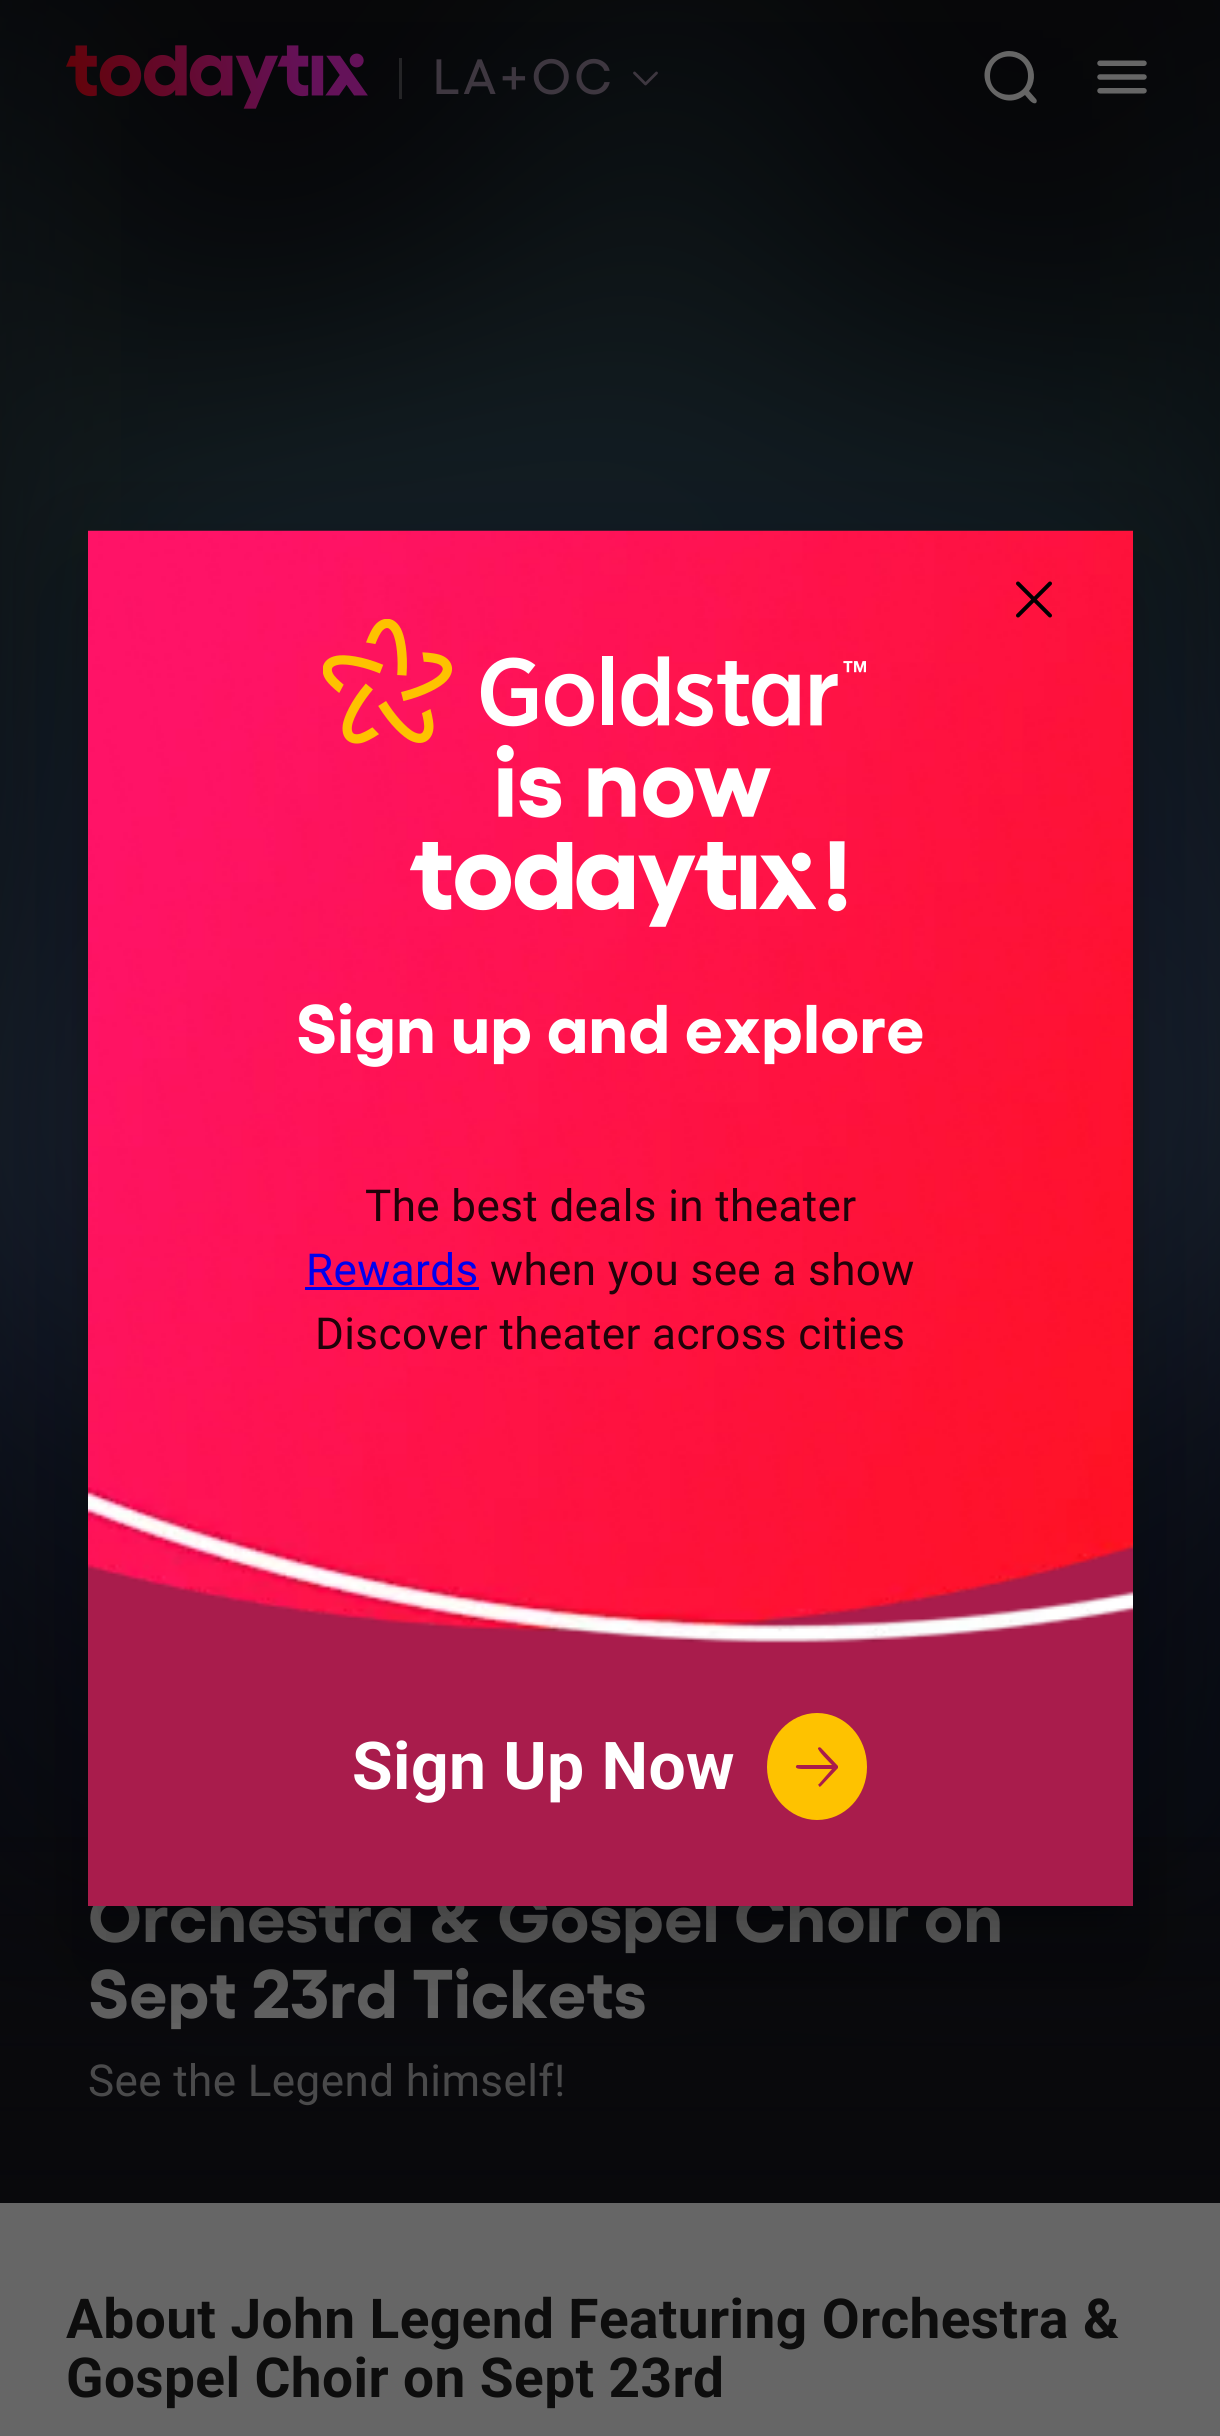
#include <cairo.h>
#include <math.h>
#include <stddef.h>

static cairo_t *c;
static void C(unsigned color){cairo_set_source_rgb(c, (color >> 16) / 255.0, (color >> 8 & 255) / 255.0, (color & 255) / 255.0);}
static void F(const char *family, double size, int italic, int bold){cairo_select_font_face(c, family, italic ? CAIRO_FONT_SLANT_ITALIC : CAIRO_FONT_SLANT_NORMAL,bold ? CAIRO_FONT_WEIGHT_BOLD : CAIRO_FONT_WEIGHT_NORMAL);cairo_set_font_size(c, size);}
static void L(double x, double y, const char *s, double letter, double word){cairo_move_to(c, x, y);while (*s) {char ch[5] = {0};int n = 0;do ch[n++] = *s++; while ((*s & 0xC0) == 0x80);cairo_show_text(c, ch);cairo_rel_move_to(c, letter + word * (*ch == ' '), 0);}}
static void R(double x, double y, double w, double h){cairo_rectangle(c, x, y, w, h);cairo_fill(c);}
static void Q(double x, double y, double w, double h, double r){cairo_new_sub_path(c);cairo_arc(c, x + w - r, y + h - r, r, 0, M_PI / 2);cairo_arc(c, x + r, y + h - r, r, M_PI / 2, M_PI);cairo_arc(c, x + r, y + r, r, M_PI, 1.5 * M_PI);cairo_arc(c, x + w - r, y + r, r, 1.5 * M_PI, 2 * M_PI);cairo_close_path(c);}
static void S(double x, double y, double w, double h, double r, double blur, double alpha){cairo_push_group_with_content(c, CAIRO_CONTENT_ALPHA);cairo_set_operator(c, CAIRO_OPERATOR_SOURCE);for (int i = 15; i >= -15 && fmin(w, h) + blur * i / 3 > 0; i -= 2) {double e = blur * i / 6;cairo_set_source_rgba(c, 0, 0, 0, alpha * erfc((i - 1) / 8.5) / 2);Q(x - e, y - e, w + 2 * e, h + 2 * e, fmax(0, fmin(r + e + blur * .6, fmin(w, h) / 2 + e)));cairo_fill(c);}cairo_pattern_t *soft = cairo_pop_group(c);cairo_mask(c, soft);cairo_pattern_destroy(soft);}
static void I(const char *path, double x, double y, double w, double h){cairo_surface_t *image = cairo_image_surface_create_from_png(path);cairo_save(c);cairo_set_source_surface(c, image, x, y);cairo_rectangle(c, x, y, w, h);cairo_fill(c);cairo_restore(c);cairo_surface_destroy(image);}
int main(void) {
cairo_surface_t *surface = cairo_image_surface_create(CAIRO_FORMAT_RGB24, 1220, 2436);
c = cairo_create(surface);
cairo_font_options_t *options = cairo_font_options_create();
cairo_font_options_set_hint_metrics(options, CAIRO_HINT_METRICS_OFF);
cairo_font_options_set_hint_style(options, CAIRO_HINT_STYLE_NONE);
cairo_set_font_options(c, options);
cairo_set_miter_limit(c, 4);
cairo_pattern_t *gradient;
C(0x666666);
cairo_paint(c);
C(0x09090c);
R(0,0,1220,2200);
I("3.png",0,0,1220,2056);
I("1.png",66,45,302,64);
C(0x242426);
R(399,58,3,41);
F("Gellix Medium",49.5,0,0);
C(0x3e3740);
L(433,94,"LA+OC",3.25,0);
cairo_new_path(c);
cairo_move_to(c,634.5,73);
cairo_line_to(c,645.5,84);
cairo_line_to(c,656.5,73);
cairo_set_line_width(c,2.8);
cairo_set_line_cap(c,CAIRO_LINE_CAP_ROUND);
cairo_set_line_join(c,CAIRO_LINE_JOIN_ROUND);
cairo_stroke(c);
C(0x666666);
cairo_set_fill_rule(c,CAIRO_FILL_RULE_EVEN_ODD);
cairo_new_path(c);
cairo_move_to(c,990,76);
cairo_curve_to(c,990,50,1028,50,1028,76);
cairo_curve_to(c,1028,101,990,101,990,76);
cairo_close_path(c);
cairo_move_to(c,1009,51);
cairo_curve_to(c,1003,51,996,54,992,58);
cairo_curve_to(c,970,80,1001,114,1025,95);
cairo_curve_to(c,1027,97,1032,105,1036,103);
cairo_curve_to(c,1037,102,1037,100,1036,99);
cairo_line_to(c,1029,91);
cairo_curve_to(c,1041,75,1030,51,1009,51);
cairo_close_path(c);
cairo_fill(c);
I("2.png",1097,60,50,34);
gradient = cairo_pattern_create_linear(611,1625,611,2203);
cairo_pattern_add_color_stop_rgba(gradient,0,0.035,0.035,0.047,0);
cairo_pattern_add_color_stop_rgba(gradient,1,0.035,0.035,0.047,1);
cairo_set_source(c,gradient);
cairo_pattern_destroy(gradient);
R(0,1837,1220,366);
F("Gellix",68.75,0,1);
C(0x666666);
L(88,1942,"Orchestra & Gospel Choir on",.4,0);
L(88,2018,"Sept 23rd Tickets",.4,0);
F("Roboto",44,0,0);
C(0x4a4a4b);
L(88,2096,"See the Legend himself!",.4,0);
F("Roboto",55,0,1);
C(0x0d0d0d);
L(66,2338,"About John Legend Featuring Orchestra &",.4,0);
L(66,2397,"Gospel Choir on Sept 23rd",.4,0);
C(0x000000);
S(66,534,1089,1419,0,63,.12);
S(80,589,1061,1391,0,52,.14);
S(107,580,1007,1337,0,20.5,.2);
C(0xa91c4c);
R(88,1544,1045,362);
I("4.png",88,530,1045,1113);
cairo_new_path(c);
cairo_move_to(c,1018,615.5);
cairo_line_to(c,1050,583.5);
cairo_move_to(c,1018,583.5);
cairo_line_to(c,1050,615.5);
C(0x000000);
cairo_set_line_width(c,4);
cairo_stroke(c);
I("5.png",323,619,543,308);
F("Gellix",68.75,0,1);
C(0xffffff);
L(296,1053,"Sign up and explore",.4,0);
F("Roboto",44,0,0);
C(0x210209);
L(365,1221,"The best deals in theater",.4,0);
C(0x0000ee);
L(306,1285,"Rewards",.4,0);
R(305,1287,174,3);
C(0x210209);
L(490,1285,"when you see a show",.4,0);
L(315,1349,"Discover theater across cities",.4,0);
F("Roboto",66,0,1);
C(0xffffff);
L(352,1789,"Sign Up Now",.4,0);
C(0xfec200);
cairo_new_path(c);
cairo_move_to(c,817,1820);
cairo_curve_to(c,845,1820,867,1796,867,1767);
cairo_curve_to(c,867,1737,845,1713,817,1713);
cairo_curve_to(c,790,1713,767,1737,767,1767);
cairo_curve_to(c,767,1796,790,1820,817,1820);
cairo_close_path(c);
cairo_move_to(c,821,1748);
cairo_curve_to(c,820,1747,819,1747,818,1748);
cairo_curve_to(c,817,1750,830,1763,832,1765);
cairo_line_to(c,797,1765);
cairo_line_to(c,796,1766);
cairo_curve_to(c,795,1769,800,1769,803,1769);
cairo_line_to(c,832,1769);
cairo_line_to(c,819,1784);
cairo_curve_to(c,818,1784,818,1785,819,1786);
cairo_curve_to(c,819,1787,820,1787,821,1786);
cairo_line_to(c,838,1768);
cairo_curve_to(c,838,1767,838,1766,838,1766);
cairo_close_path(c);
cairo_fill(c);
cairo_surface_write_to_png(surface, "o.png");
cairo_font_options_destroy(options);
cairo_destroy(c);
cairo_surface_destroy(surface);
return 0;
}
